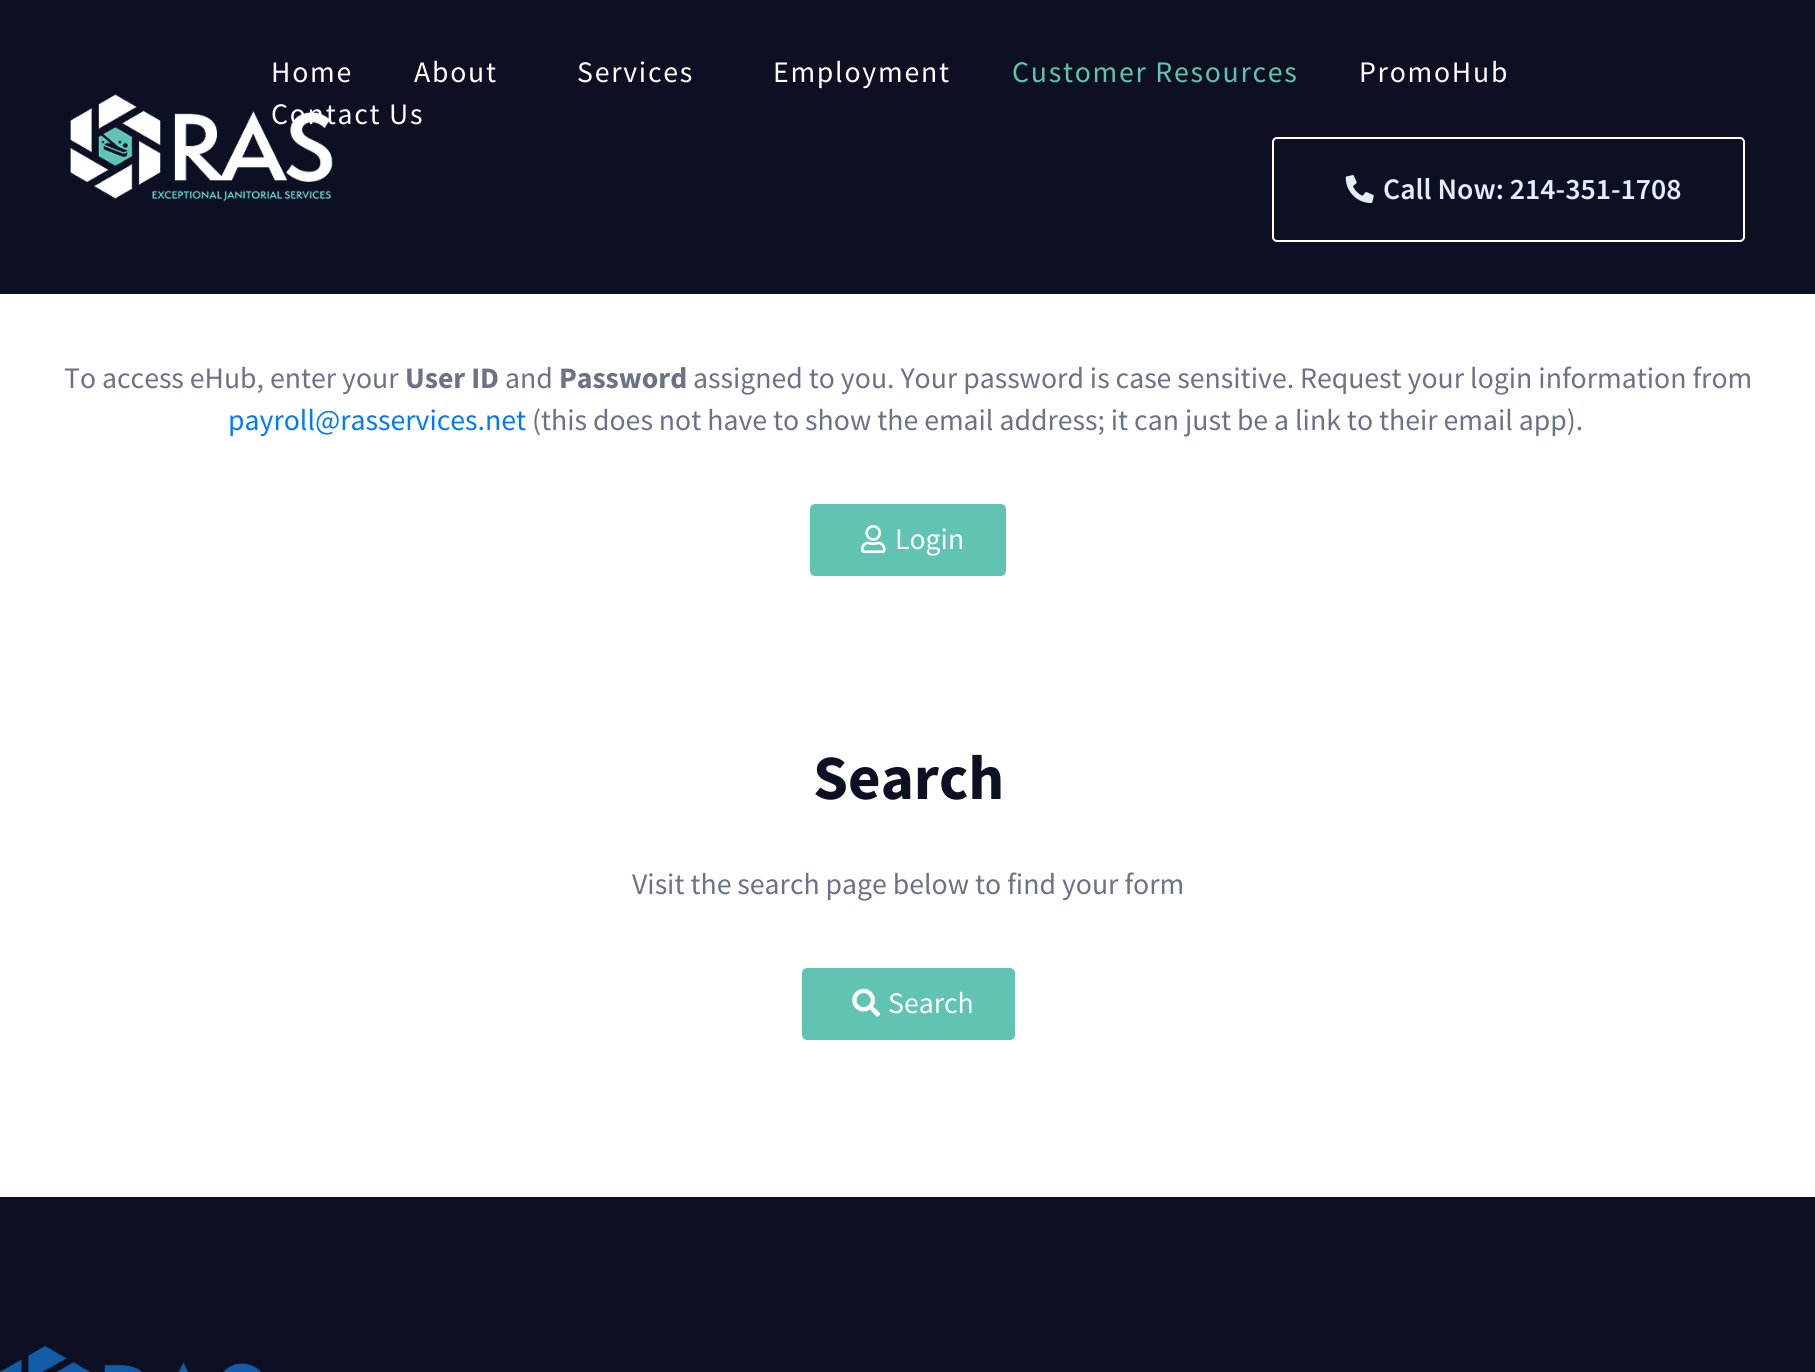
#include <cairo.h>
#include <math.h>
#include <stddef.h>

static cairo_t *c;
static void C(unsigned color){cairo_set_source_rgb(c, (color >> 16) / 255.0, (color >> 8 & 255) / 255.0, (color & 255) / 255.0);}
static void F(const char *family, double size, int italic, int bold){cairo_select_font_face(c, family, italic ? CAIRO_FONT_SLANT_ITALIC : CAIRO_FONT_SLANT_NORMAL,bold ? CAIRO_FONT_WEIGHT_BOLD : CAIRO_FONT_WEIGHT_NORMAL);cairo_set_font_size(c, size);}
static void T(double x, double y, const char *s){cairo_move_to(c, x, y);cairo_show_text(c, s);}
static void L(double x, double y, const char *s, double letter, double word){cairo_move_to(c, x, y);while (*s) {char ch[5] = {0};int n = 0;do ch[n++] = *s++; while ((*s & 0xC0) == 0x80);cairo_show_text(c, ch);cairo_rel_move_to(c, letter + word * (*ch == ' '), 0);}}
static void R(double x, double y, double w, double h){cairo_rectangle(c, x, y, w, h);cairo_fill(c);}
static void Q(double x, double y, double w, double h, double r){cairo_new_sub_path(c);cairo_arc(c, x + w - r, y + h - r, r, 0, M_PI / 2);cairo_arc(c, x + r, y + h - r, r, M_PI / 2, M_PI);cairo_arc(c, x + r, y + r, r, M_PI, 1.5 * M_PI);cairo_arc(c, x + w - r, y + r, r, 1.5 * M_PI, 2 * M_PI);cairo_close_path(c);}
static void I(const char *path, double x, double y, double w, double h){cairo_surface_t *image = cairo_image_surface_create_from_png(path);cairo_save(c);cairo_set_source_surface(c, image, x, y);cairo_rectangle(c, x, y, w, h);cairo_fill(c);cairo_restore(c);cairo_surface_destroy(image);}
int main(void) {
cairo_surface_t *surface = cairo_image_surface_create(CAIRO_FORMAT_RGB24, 1815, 1372);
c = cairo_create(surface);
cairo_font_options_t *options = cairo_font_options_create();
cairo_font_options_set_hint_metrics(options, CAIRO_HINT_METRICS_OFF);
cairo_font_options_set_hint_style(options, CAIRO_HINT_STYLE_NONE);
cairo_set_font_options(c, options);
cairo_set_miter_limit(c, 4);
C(0x0c1022);
cairo_paint(c);
I("1.png",70,94,263,108);
F("Source Sans Pro",29.75,0,0);
C(0xffffff);
L(271,82,"Home",1.75,0);
L(414,82,"About",1.75,0);
L(577,82,"Services",1.75,0);
L(773,82,"Employment",1.75,0);
C(0x61c4b2);
L(1012,82,"Customer Resources",1.75,0);
C(0xffffff);
L(1359,82,"PromoHub",1.75,0);
L(271,124,"Contact Us",1.75,0);
Q(1273,138,471,103,4);
cairo_stroke(c);
I("2.png",1345,175,29,28);
F("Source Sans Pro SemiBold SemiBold",29.75,0,0);
C(0xe5edf7);
T(1383,199,"Call Now: 214-351-1708");
C(0xffffff);
R(0,294,1815,903);
F("Source Sans Pro",29.75,0,0);
C(0x6b7287);
T(64,388,"To access eHub, enter your");
F("Source Sans Pro",29.75,0,1);
T(405,388,"User ID");
F("Source Sans Pro",29.75,0,0);
T(505,388,"and");
F("Source Sans Pro",29.75,0,1);
T(559,388,"Password");
F("Source Sans Pro",29.75,0,0);
T(693,388,"assigned to you. Your password is case sensitive. Request your login information from");
C(0x007bff);
T(228,430,"payroll@rasservices.net");
C(0x6b7287);
T(532,430,"(this does not have to show the email address; it can just be a link to their email app).");
C(0x61c4b2);
Q(810,504,196,72,5);
cairo_fill(c);
I("3.png",861,525,25,28);
C(0xffffff);
T(895,549,"Login");
F("Source Sans Pro",63,0,1);
C(0x0c1022);
T(813,799,"Search");
F("Source Sans Pro",29.75,0,0);
C(0x6b7287);
T(632,894,"Visit the search page below to find your form");
C(0x61c4b2);
Q(802,968,213,72,5);
cairo_fill(c);
I("4.png",852,988,29,29);
C(0xffffff);
T(888,1013,"Search");
I("5.png",0,1346,261,26);
cairo_surface_write_to_png(surface, "o.png");
cairo_font_options_destroy(options);
cairo_destroy(c);
cairo_surface_destroy(surface);
return 0;
}
